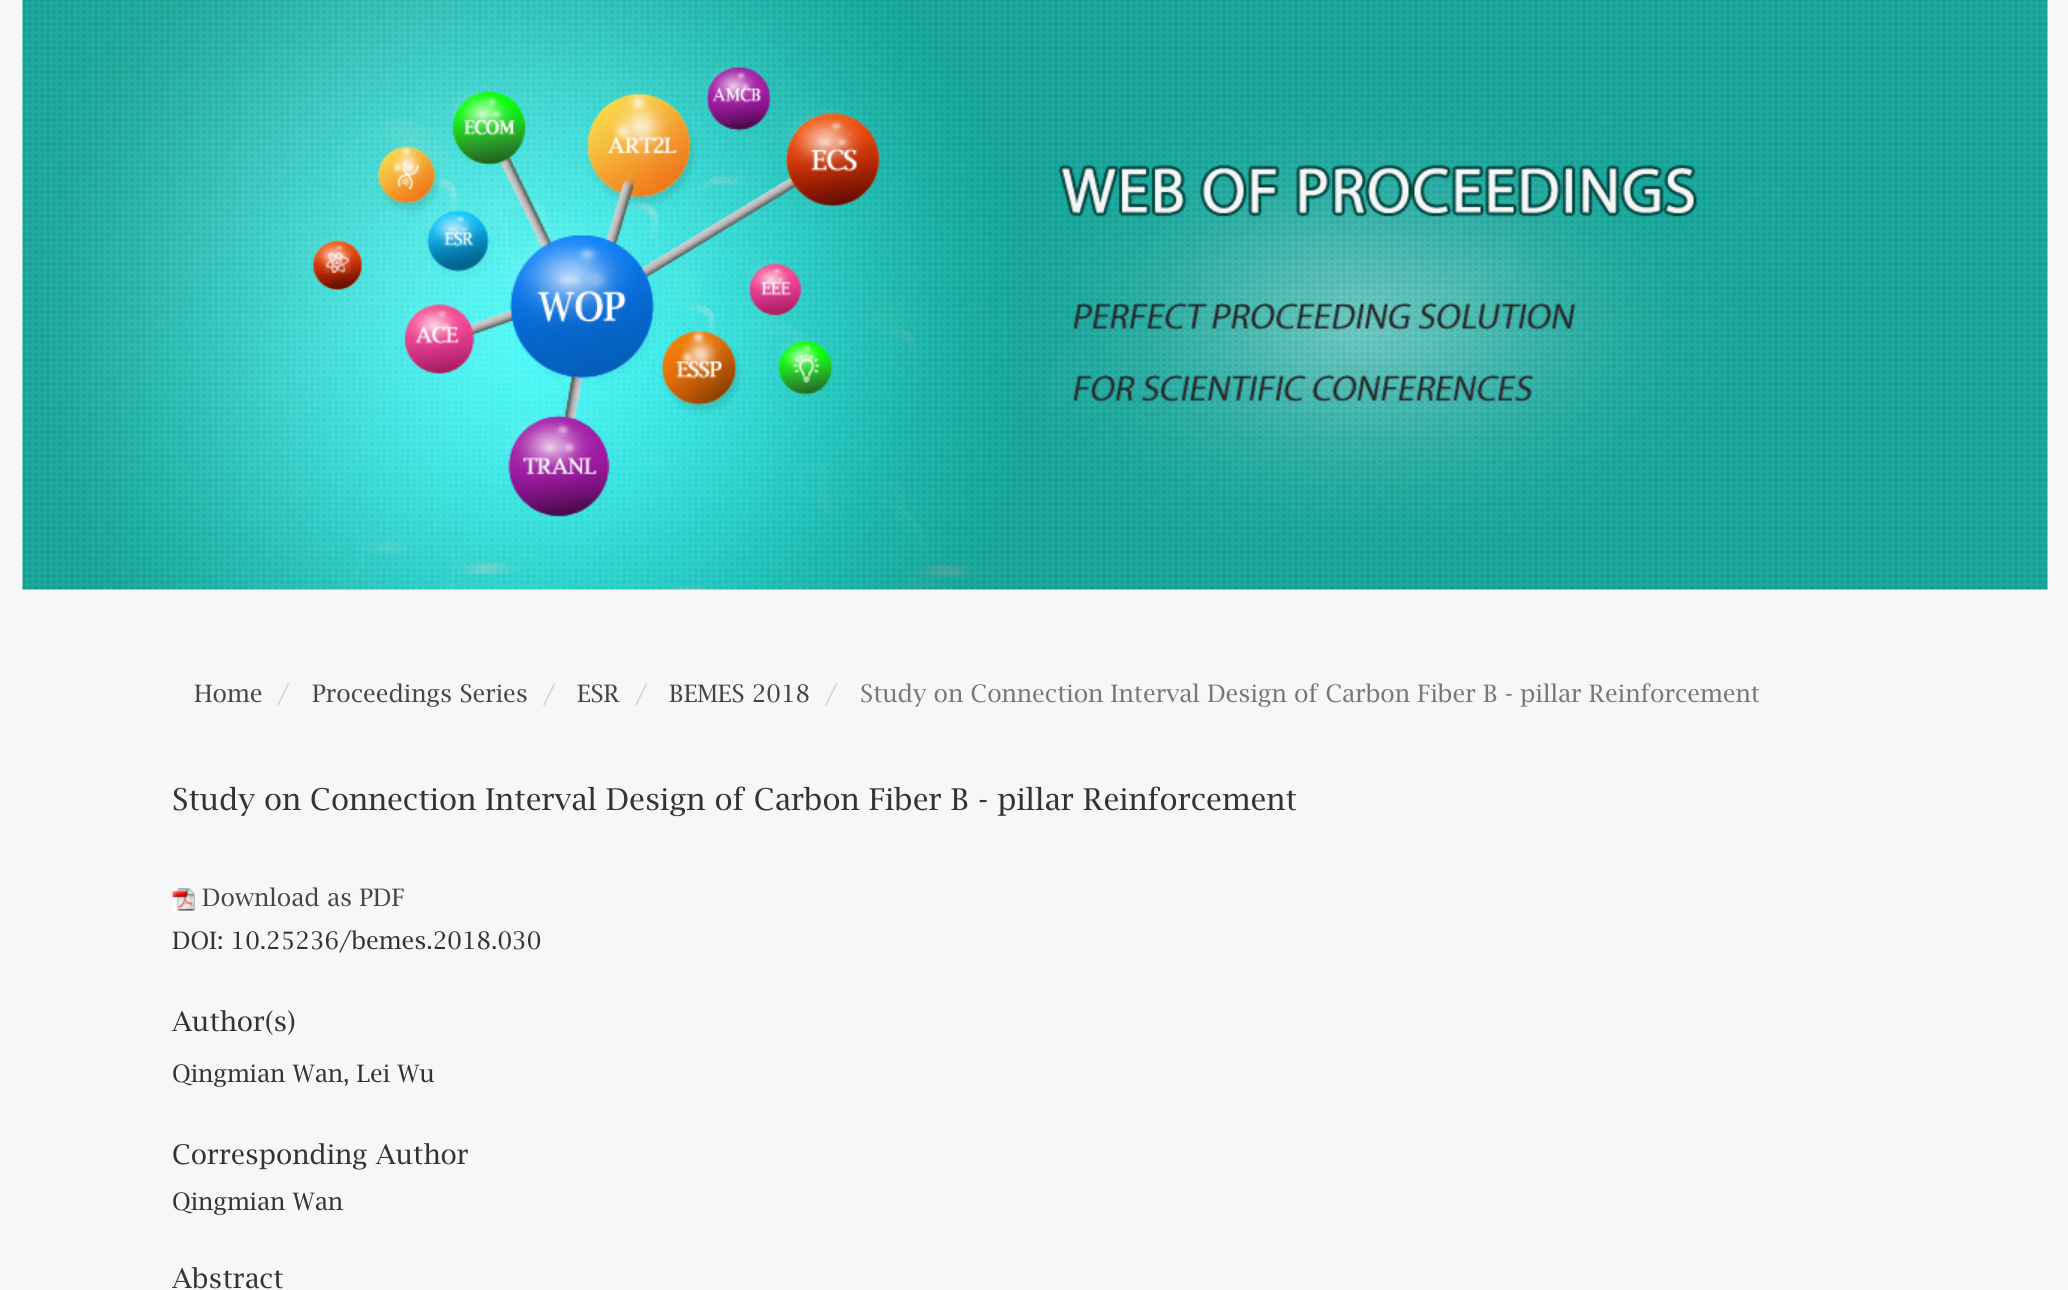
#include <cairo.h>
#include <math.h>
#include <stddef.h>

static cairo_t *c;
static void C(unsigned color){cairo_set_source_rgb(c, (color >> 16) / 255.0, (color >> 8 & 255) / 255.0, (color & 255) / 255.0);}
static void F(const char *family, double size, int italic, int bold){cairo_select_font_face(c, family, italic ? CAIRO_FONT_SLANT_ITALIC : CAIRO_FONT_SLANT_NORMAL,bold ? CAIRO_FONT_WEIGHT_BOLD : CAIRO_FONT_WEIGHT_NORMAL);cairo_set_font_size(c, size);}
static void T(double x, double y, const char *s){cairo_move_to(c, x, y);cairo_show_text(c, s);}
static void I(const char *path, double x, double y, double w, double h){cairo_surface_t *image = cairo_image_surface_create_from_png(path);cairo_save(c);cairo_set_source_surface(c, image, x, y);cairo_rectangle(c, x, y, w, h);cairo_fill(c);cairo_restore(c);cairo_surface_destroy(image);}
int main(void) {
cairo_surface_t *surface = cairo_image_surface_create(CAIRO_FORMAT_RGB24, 2068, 1290);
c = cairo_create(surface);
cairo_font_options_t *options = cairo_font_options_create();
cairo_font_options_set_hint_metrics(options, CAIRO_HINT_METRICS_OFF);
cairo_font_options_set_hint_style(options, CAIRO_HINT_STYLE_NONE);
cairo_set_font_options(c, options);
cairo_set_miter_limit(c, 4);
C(0xf7f7f7);
cairo_paint(c);
I("1.png",22,0,2026,590);
F("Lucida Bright",24,0,0);
C(0x464646);
T(194,702,"Home");
C(0xcccccc);
T(277,702,"/");
C(0x464646);
T(312,702,"Proceedings Series");
C(0xcccccc);
T(543,702,"/");
C(0x464646);
T(577,702,"ESR");
C(0xcccccc);
T(635,702,"/");
C(0x464646);
T(669,702,"BEMES 2018");
C(0xcccccc);
T(825,702,"/");
C(0x777777);
T(860,702,"Study on Connection Interval Design of Carbon Fiber B - pillar Reinforcement");
F("Lucida Bright",30,0,0);
C(0x333333);
T(172,810,"Study on Connection Interval Design of Carbon Fiber B - pillar Reinforcement");
I("2.png",172,888,23,23);
F("Lucida Bright",24,0,0);
C(0x464646);
T(202,906,"Download as PDF");
C(0x333333);
T(172,949,"DOI: 10.25236/bemes.2018.030");
F("Lucida Bright",27,0,0);
T(172,1031,"Author(s)");
F("Lucida Bright",24,0,0);
T(172,1082,"Qingmian Wan, Lei Wu");
F("Lucida Bright",27,0,0);
T(172,1164,"Corresponding Author");
F("Lucida Bright",24,0,0);
T(172,1210,"Qingmian Wan");
F("Lucida Bright",27,0,0);
T(172,1288,"Abstract");
cairo_surface_write_to_png(surface, "o.png");
cairo_font_options_destroy(options);
cairo_destroy(c);
cairo_surface_destroy(surface);
return 0;
}
